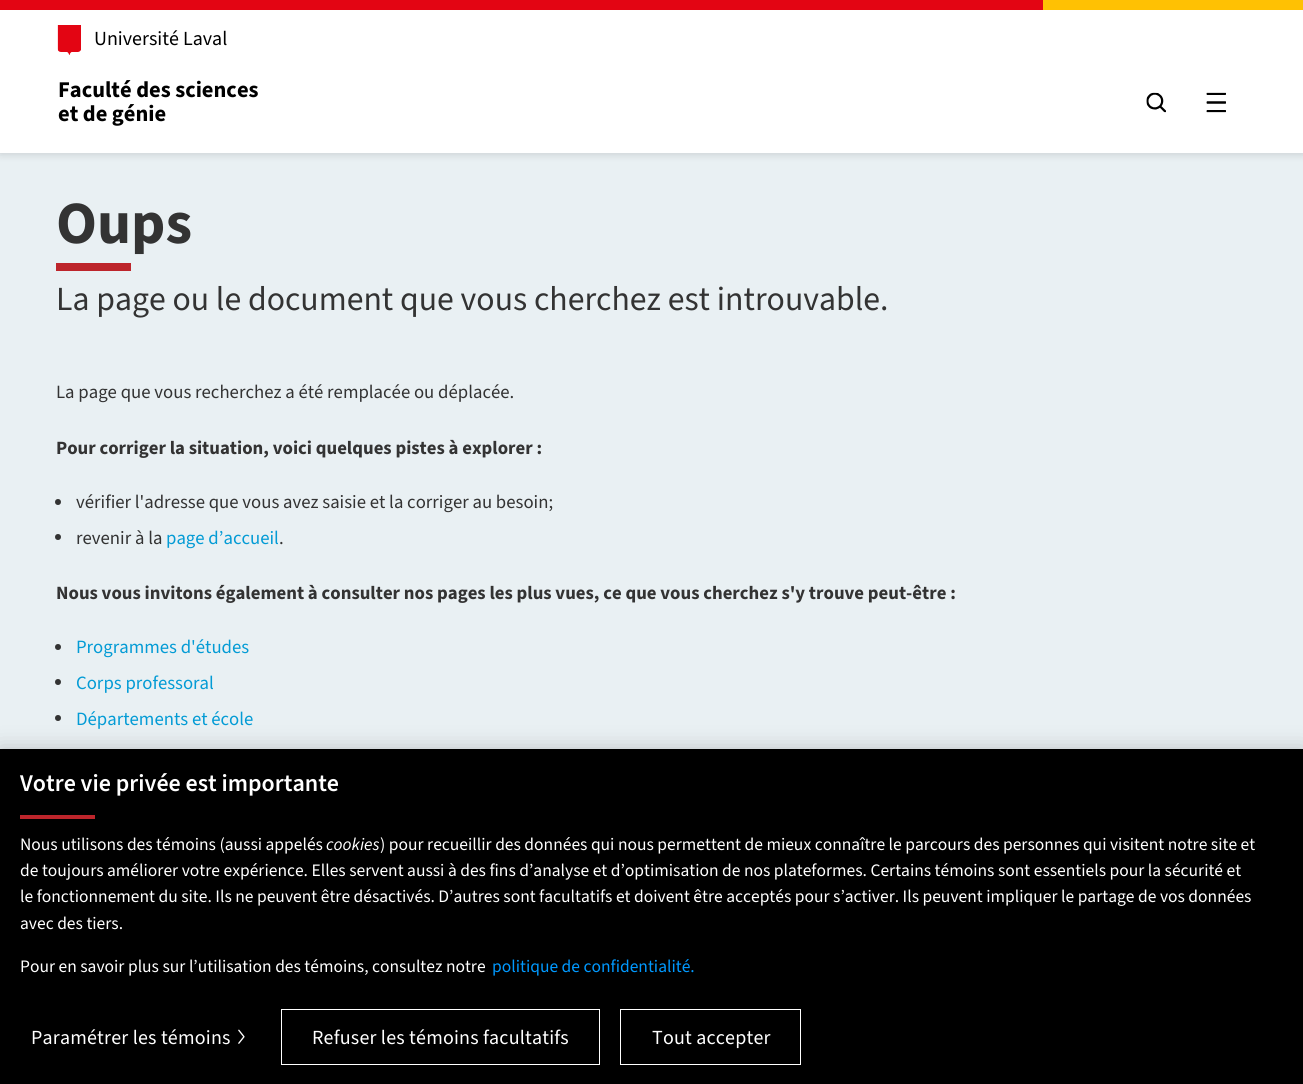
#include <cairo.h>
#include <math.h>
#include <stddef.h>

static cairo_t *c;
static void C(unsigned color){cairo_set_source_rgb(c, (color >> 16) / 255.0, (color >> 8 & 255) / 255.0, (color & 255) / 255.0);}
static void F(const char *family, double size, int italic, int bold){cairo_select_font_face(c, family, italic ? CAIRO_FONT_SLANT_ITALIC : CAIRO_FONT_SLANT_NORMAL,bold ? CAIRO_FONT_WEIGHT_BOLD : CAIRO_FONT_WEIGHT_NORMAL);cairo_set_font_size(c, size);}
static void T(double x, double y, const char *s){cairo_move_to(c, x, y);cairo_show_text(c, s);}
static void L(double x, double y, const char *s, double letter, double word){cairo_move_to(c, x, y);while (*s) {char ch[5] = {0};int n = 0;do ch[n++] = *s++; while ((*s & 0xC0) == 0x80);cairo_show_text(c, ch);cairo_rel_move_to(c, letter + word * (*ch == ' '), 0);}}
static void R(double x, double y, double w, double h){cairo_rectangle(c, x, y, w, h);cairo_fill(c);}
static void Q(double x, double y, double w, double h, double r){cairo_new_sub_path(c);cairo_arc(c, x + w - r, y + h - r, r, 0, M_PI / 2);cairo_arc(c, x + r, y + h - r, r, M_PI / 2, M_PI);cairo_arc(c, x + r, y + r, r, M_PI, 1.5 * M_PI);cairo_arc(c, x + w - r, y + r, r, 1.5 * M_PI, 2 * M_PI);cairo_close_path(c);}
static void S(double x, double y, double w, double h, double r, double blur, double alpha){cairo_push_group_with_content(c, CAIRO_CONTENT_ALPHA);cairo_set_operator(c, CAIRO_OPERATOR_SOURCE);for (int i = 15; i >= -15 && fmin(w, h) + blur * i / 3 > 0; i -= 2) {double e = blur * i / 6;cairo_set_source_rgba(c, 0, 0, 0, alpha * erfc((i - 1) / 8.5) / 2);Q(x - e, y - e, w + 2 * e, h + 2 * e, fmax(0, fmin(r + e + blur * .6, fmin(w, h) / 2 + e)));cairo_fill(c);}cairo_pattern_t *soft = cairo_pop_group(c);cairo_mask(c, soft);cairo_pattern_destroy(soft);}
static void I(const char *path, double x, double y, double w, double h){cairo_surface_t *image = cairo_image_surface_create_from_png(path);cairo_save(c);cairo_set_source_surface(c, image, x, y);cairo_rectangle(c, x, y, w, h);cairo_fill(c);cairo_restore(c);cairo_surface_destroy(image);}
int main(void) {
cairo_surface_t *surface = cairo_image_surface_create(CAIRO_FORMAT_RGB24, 1303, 1084);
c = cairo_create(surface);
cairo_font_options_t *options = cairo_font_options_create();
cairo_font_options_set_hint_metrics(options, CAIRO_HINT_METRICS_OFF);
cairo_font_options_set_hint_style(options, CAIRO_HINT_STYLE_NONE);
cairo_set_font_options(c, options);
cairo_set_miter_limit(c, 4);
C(0xe9f0f3);
cairo_paint(c);
C(0x000000);
S(0,1,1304,153,0,4.5,.15);
C(0xe30513);
R(0,0,1043,10);
C(0xffc103);
R(1043,0,260,10);
C(0xffffff);
R(0,10,1303,143);
I("1.png",57,25,24,30);
F("Source Sans 3",20,0,0);
C(0x000000);
T(94,45,"Université Laval");
F("Source Sans 3",22.5,0,1);
T(58,97,"Faculté des sciences");
T(58,121,"et de génie");
I("2.png",1146,92,20,21);
I("3.png",1206,92,20,21);
F("Source Sans 3",60,0,1);
C(0x333333);
T(56,243,"Oups");
C(0xbd252b);
R(56,263,75,8);
F("Source Sans 3",33.75,0,0);
C(0x333333);
T(56,310,"La page ou le document que vous cherchez est introuvable.");
F("Source Sans 3",18.75,0,0);
T(56,398,"La page que vous recherchez a été remplacée ou déplacée.");
F("Source Sans 3",18.75,0,1);
T(56,454,"Pour corriger la situation, voici quelques pistes à explorer :");
cairo_new_path(c);
cairo_arc(c,58,502,3,0,2 * M_PI);
cairo_fill(c);
F("Source Sans 3",18.75,0,0);
T(76,508,"vérifier l'adresse que vous avez saisie et la corriger au besoin;");
cairo_new_path(c);
cairo_arc(c,58,537,3,0,2 * M_PI);
cairo_fill(c);
T(76,544,"revenir à la");
C(0x039bd5);
T(166,544,"page d’accueil");
C(0x333333);
T(279,544,".");
F("Source Sans 3",18.75,0,1);
T(56,599,"Nous vous invitons également à consulter nos pages les plus vues, ce que vous cherchez s'y trouve peut-être :");
cairo_new_path(c);
cairo_arc(c,58,647,3,0,2 * M_PI);
cairo_fill(c);
F("Source Sans 3",18.75,0,0);
C(0x039bd5);
T(76,653,"Programmes d'études");
C(0x333333);
cairo_new_path(c);
cairo_arc(c,58,682,3,0,2 * M_PI);
cairo_fill(c);
C(0x039bd5);
T(76,689,"Corps professoral");
C(0x333333);
cairo_new_path(c);
cairo_arc(c,58,718,3,0,2 * M_PI);
cairo_fill(c);
C(0x039bd5);
T(76,725,"Départements et école");
C(0x000000);
S(0,749,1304,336,0,11,.2);
C(0x000000);
R(0,749,1303,335);
F("Source Sans 3 SemiBold",24,0,0);
C(0xffffff);
T(20,791,"Votre vie privée est importante");
C(0xbd252b);
R(20,815,75,4);
F("Source Sans 3",17.5,0,0);
C(0xffffff);
T(20,850,"Nous utilisons des témoins (aussi appelés");
F("Source Sans 3",17.5,1,0);
T(326,850,"cookies");
F("Source Sans 3",17.5,0,0);
T(380,850,") pour recueillir des données qui nous permettent de mieux connaître le parcours des personnes qui visitent notre site et");
T(20,876,"de toujours améliorer votre expérience. Elles servent aussi à des fins d’analyse et d’optimisation de nos plateformes. Certains témoins sont essentiels pour la sécurité et");
T(20,902,"le fonctionnement du site. Ils ne peuvent être désactivés. D’autres sont facultatifs et doivent être acceptés pour s’activer. Ils peuvent impliquer le partage de vos données");
T(20,929,"avec des tiers.");
T(20,972,"Pour en savoir plus sur l’utilisation des témoins, consultez notre");
C(0x0099ff);
T(492,972,"politique de confidentialité.");
F("Source Sans 3",20,0,0);
C(0xffffff);
L(31,1044,"Paramétrer les témoins",.2,0);
I("4.png",238,1029,7,15);
cairo_rectangle(c,281.5,1009.5,318,55);
cairo_set_line_width(c,1);
cairo_stroke(c);
L(312,1044,"Refuser les témoins facultatifs",.2,0);
cairo_rectangle(c,620.5,1009.5,180,55);
cairo_stroke(c);
L(652,1044,"Tout accepter",.2,0);
cairo_surface_write_to_png(surface, "o.png");
cairo_font_options_destroy(options);
cairo_destroy(c);
cairo_surface_destroy(surface);
return 0;
}
